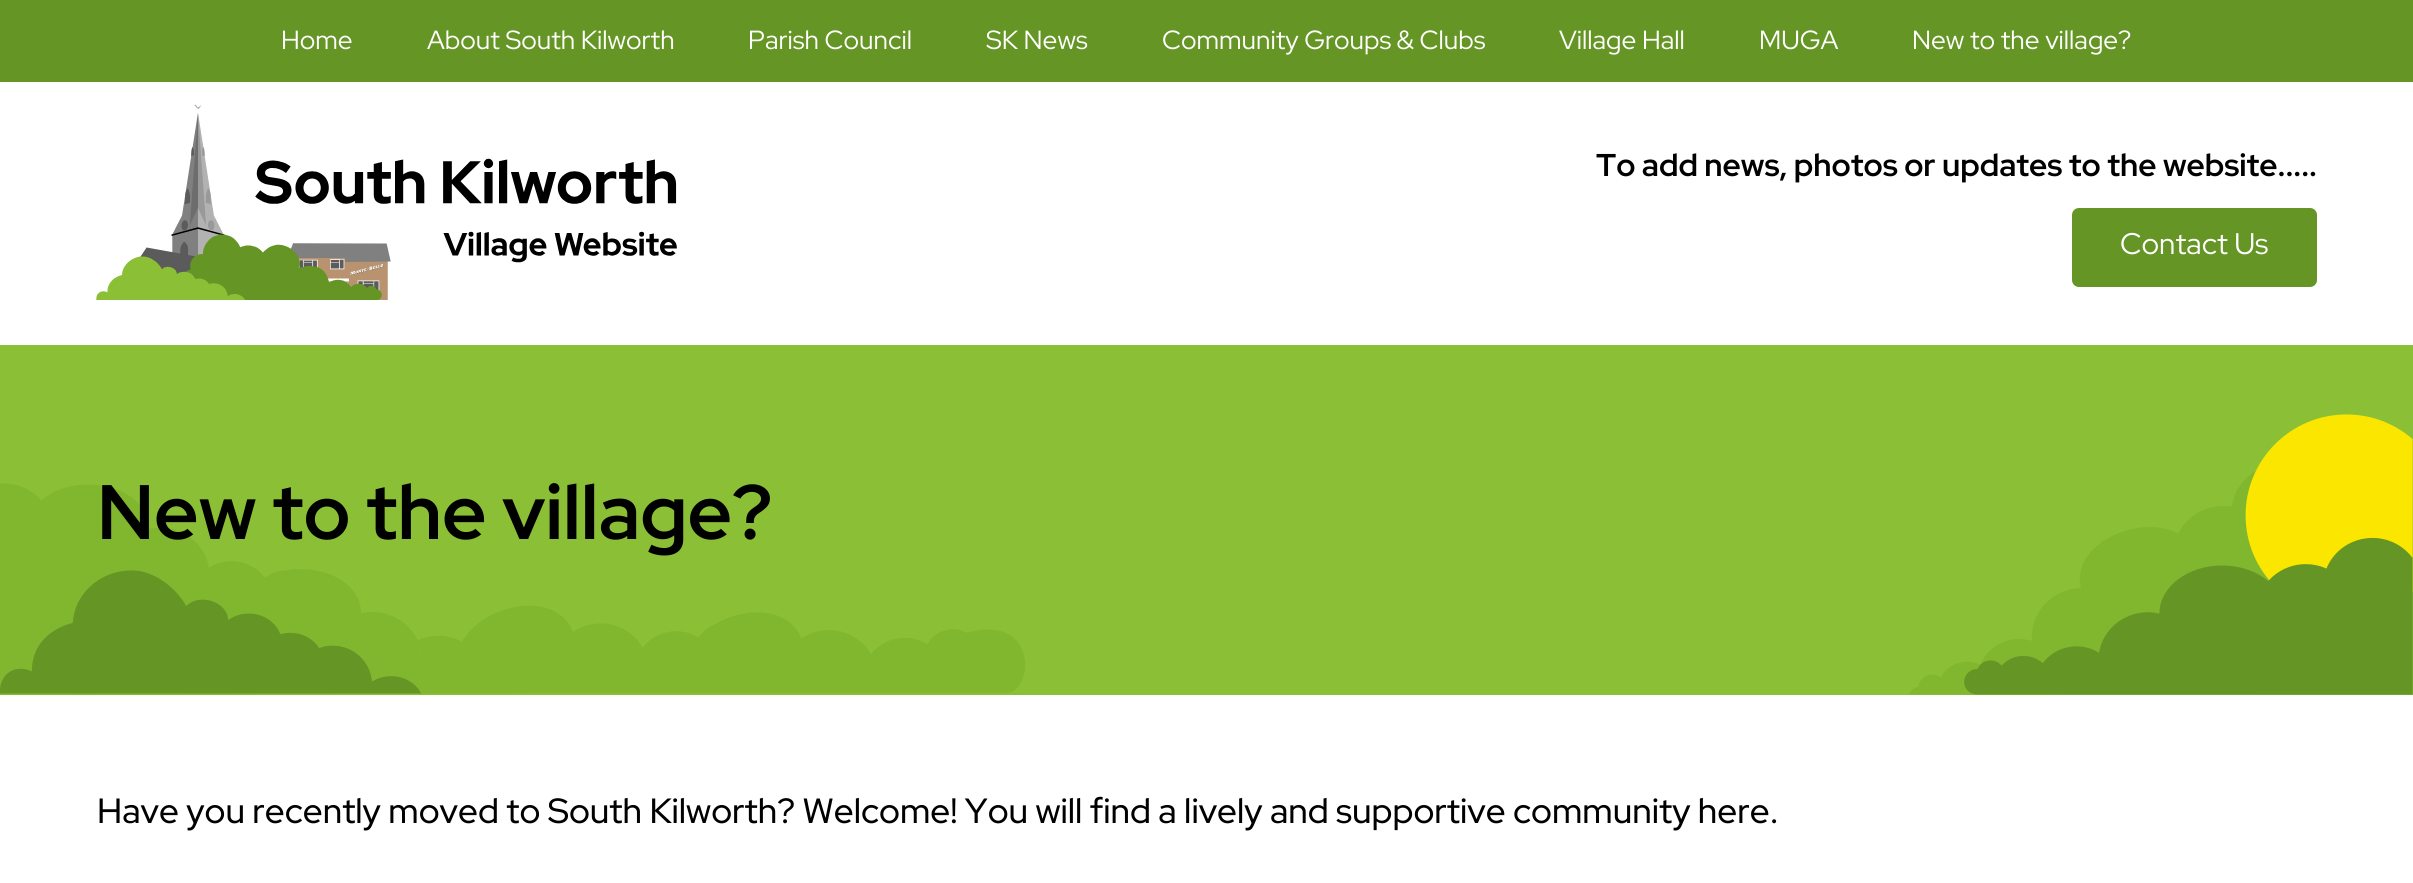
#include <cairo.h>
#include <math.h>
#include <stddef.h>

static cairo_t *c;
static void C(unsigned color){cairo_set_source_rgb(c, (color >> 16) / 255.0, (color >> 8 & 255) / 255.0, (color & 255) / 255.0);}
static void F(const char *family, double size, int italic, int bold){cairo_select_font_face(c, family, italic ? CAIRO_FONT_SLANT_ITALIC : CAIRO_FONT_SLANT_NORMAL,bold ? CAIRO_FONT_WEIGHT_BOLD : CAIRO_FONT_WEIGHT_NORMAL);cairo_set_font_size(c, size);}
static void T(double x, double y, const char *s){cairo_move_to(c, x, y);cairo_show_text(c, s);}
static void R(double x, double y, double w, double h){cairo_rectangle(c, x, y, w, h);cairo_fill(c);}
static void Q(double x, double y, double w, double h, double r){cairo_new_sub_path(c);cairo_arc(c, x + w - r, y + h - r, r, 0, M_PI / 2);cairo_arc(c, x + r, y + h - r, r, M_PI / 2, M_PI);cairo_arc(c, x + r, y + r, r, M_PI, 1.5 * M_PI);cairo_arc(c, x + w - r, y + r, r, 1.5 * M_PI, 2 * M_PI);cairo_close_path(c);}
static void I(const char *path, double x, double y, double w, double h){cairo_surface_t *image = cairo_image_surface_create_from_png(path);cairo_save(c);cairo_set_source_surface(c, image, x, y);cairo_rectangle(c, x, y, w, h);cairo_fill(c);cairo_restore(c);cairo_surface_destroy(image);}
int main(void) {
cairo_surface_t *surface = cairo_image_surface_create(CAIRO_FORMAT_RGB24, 2413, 883);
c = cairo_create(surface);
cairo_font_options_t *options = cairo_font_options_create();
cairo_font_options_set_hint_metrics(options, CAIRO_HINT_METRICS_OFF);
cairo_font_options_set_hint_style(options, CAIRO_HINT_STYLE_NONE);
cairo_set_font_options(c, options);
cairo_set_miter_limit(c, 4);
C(0xffffff);
cairo_paint(c);
C(0x659525);
R(0,0,2413,82);
F("Red Hat Display",26.25,0,0);
C(0xffffff);
T(281,49,"Home");
T(427,49,"About South Kilworth");
T(748,49,"Parish Council");
T(986,49,"SK News");
T(1162,49,"Community Groups & Clubs");
T(1559,49,"Village Hall");
T(1759,49,"MUGA");
T(1912,49,"New to the village?");
I("1.png",96,104,581,196);
F("Red Hat Display",31.5,0,1);
C(0x000000);
T(1596,176,"To add news, photos or updates to the website.....");
C(0x659525);
Q(2072,208,245,79,7);
cairo_fill(c);
F("Red Hat Display",29.75,0,0);
C(0xffffff);
T(2120,254,"Contact Us");
C(0x8bbf36);
R(0,345,2413,350);
I("2.png",0,483,1025,212);
I("3.png",1909,414,504,281);
F("Red Hat Display",77,0,1);
C(0x000000);
T(97,539,"New to the village?");
F("Red Hat Display Medium",35,0,0);
T(97,823,"Have you recently moved to South Kilworth? Welcome! You will find a lively and supportive community here.");
cairo_surface_write_to_png(surface, "o.png");
cairo_font_options_destroy(options);
cairo_destroy(c);
cairo_surface_destroy(surface);
return 0;
}
